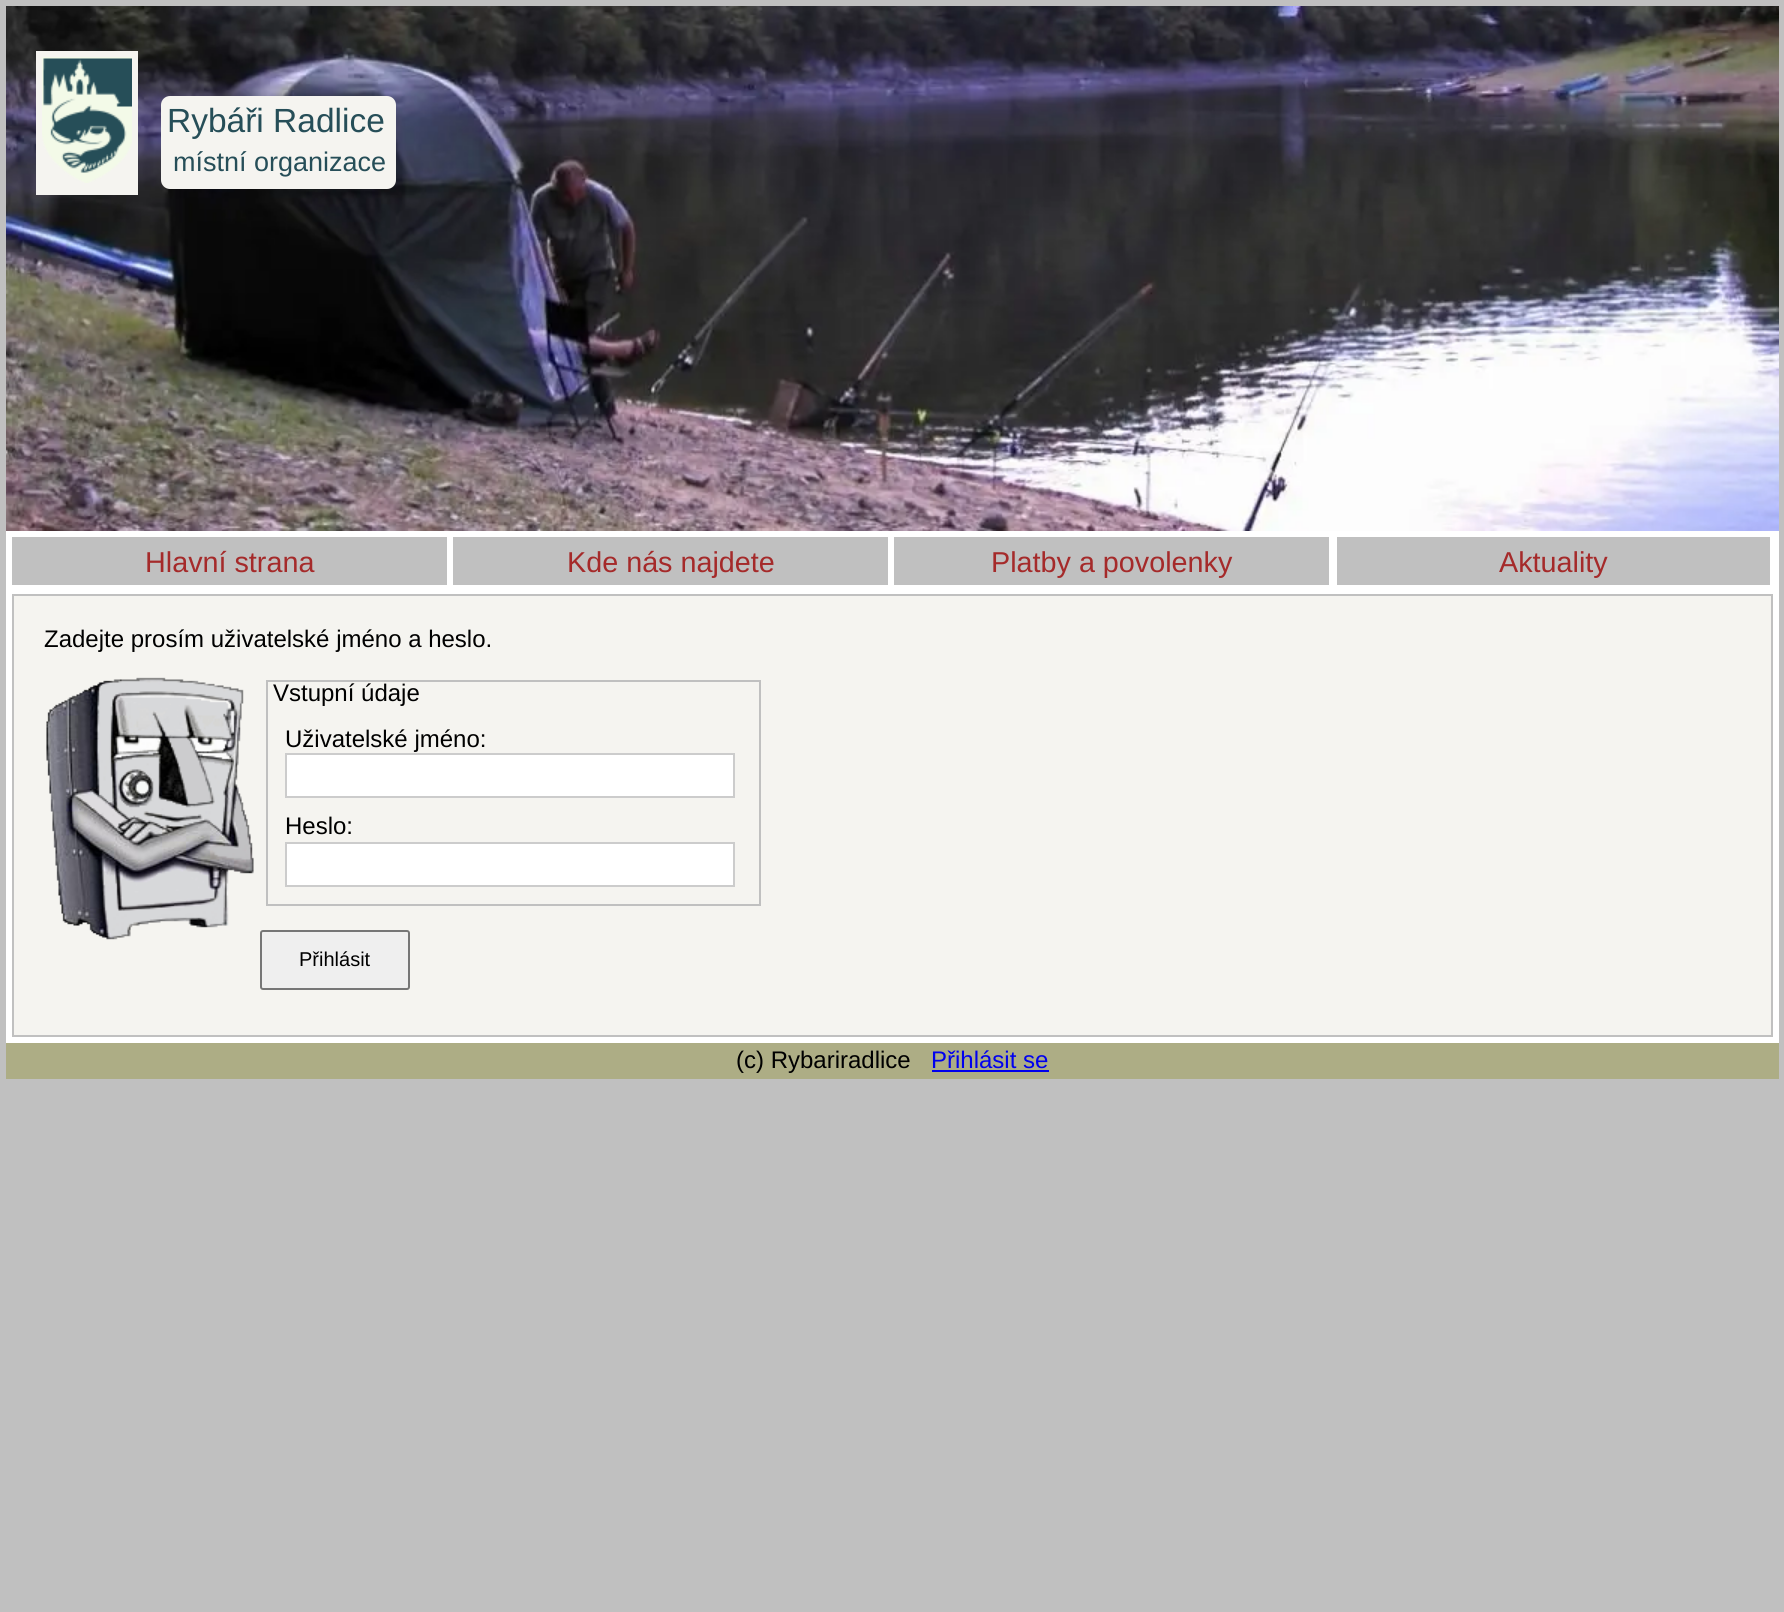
#include <cairo.h>
#include <math.h>
#include <stddef.h>

static cairo_t *c;
static void C(unsigned color){cairo_set_source_rgb(c, (color >> 16) / 255.0, (color >> 8 & 255) / 255.0, (color & 255) / 255.0);}
static void F(const char *family, double size, int italic, int bold){cairo_select_font_face(c, family, italic ? CAIRO_FONT_SLANT_ITALIC : CAIRO_FONT_SLANT_NORMAL,bold ? CAIRO_FONT_WEIGHT_BOLD : CAIRO_FONT_WEIGHT_NORMAL);cairo_set_font_size(c, size);}
static void T(double x, double y, const char *s){cairo_move_to(c, x, y);cairo_show_text(c, s);}
static void R(double x, double y, double w, double h){cairo_rectangle(c, x, y, w, h);cairo_fill(c);}
static void Q(double x, double y, double w, double h, double r){cairo_new_sub_path(c);cairo_arc(c, x + w - r, y + h - r, r, 0, M_PI / 2);cairo_arc(c, x + r, y + h - r, r, M_PI / 2, M_PI);cairo_arc(c, x + r, y + r, r, M_PI, 1.5 * M_PI);cairo_arc(c, x + w - r, y + r, r, 1.5 * M_PI, 2 * M_PI);cairo_close_path(c);}
static void I(const char *path, double x, double y, double w, double h){cairo_surface_t *image = cairo_image_surface_create_from_png(path);cairo_save(c);cairo_set_source_surface(c, image, x, y);cairo_rectangle(c, x, y, w, h);cairo_fill(c);cairo_restore(c);cairo_surface_destroy(image);}
int main(void) {
cairo_surface_t *surface = cairo_image_surface_create(CAIRO_FORMAT_RGB24, 1784, 1612);
c = cairo_create(surface);
cairo_font_options_t *options = cairo_font_options_create();
cairo_font_options_set_hint_metrics(options, CAIRO_HINT_METRICS_OFF);
cairo_font_options_set_hint_style(options, CAIRO_HINT_STYLE_NONE);
cairo_set_font_options(c, options);
cairo_set_miter_limit(c, 4);
C(0xc0c0c0);
cairo_paint(c);
C(0xffffff);
R(6,531,1773,512);
I("1.png",6,6,1773,525);
C(0xf5f4f0);
R(36,51,102,144);
I("2.png",42,57,90,126);
Q(161,96,235,93,9);
cairo_fill(c);
F("Liberation Sans",33.5,0,0);
C(0x264e58);
T(167,132,"Rybáři Radlice");
F("Liberation Sans",27,0,0);
T(173,171,"místní organizace");
C(0xc0c0c0);
R(12,537,435,48);
F("Liberation Sans",28.75,0,0);
C(0xa52a2a);
T(145,572,"Hlavní strana");
C(0xc0c0c0);
R(453,537,435,48);
C(0xa52a2a);
T(567,572,"Kde nás najdete");
C(0xc0c0c0);
R(894,537,435,48);
C(0xa52a2a);
T(991,572,"Platby a povolenky");
C(0xc0c0c0);
R(1337,537,433,48);
C(0xa52a2a);
T(1499,572,"Aktuality");
C(0xf5f4f0);
cairo_rectangle(c,13,595,1759,441);
cairo_fill_preserve(c);
C(0xc0c0c0);
cairo_stroke(c);
F("Liberation Sans",24,0,0);
C(0x000000);
T(44,647,"Zadejte prosím uživatelské jméno a heslo.");
I("3.png",46,677,208,263);
cairo_rectangle(c,267,681,493,224);
C(0xc0c0c0);
cairo_stroke(c);
C(0x000000);
T(273,701,"Vstupní údaje");
T(285,747,"Uživatelské jméno:");
C(0xffffff);
cairo_rectangle(c,286,754,448,43);
cairo_fill_preserve(c);
C(0xcccccc);
cairo_stroke(c);
C(0x000000);
T(285,834,"Heslo:");
C(0xffffff);
cairo_rectangle(c,286,843,448,43);
cairo_fill_preserve(c);
C(0xcccccc);
cairo_stroke(c);
C(0xefefef);
Q(261,931,148,58,2);
cairo_fill_preserve(c);
C(0x767676);
cairo_stroke(c);
F("Liberation Sans",20,0,0);
C(0x000000);
T(299,966,"Přihlásit");
C(0xadad85);
R(6,1043,1773,36);
F("Liberation Sans",24,0,0);
C(0x000000);
T(736,1068,"(c) Rybariradlice");
C(0x0000ee);
T(931,1068,"Přihlásit se");
R(932,1070,117,2);
cairo_surface_write_to_png(surface, "o.png");
cairo_font_options_destroy(options);
cairo_destroy(c);
cairo_surface_destroy(surface);
return 0;
}
